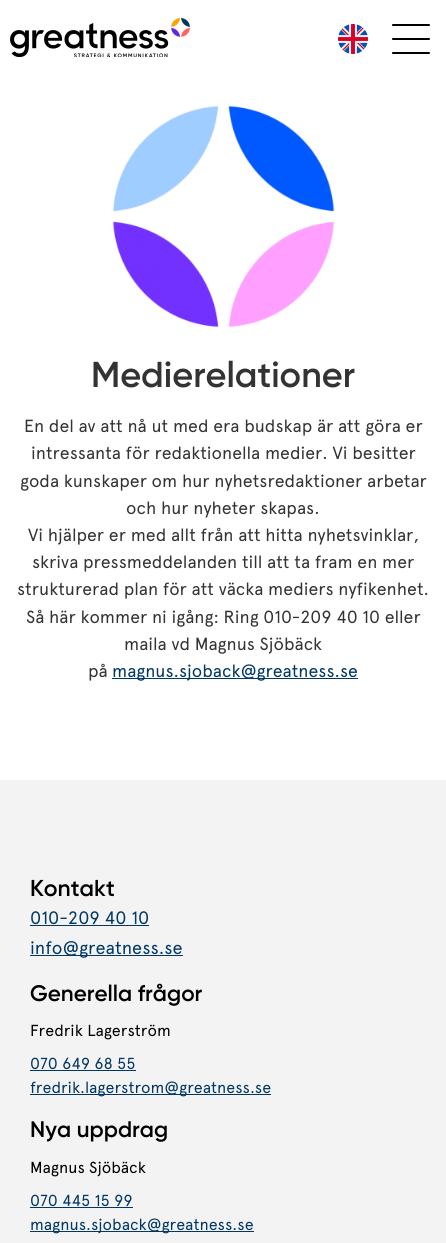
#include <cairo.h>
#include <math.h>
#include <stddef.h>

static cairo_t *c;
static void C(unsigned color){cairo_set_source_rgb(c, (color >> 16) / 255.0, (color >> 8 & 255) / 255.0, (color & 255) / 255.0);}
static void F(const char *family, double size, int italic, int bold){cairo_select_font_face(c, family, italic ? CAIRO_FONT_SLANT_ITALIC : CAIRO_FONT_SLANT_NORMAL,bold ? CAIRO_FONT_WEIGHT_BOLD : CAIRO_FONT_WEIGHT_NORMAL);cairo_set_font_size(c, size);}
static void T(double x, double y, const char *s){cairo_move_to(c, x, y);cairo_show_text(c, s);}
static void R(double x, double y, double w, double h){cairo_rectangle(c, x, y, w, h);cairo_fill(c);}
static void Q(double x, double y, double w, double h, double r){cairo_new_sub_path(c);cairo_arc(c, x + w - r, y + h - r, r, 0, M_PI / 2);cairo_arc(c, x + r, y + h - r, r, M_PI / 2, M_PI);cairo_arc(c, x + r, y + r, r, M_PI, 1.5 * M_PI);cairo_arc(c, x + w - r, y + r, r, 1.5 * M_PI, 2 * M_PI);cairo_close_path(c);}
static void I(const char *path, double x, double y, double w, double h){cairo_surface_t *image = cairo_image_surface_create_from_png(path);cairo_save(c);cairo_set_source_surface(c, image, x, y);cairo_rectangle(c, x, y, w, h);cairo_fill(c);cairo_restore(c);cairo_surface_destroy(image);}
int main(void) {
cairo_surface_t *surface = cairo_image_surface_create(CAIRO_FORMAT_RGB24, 446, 1243);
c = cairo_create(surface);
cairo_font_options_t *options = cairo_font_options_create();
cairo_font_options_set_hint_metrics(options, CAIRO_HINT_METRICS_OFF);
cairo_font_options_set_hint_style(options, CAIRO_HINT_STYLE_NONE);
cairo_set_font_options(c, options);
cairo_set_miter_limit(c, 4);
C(0xffffff);
cairo_paint(c);
I("1.png",10,18,180,39);
I("2.png",338,24,30,30);
C(0x000000);
Q(392,24,38,2,1);
cairo_fill(c);
Q(392,38,38,2,1);
cairo_fill(c);
Q(392,52,38,2,1);
cairo_fill(c);
I("3.png",112,105,223,223);
F("Gilroy SemiBold",36,0,0);
C(0x333333);
T(91,387,"Medierelationer");
F("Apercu",17.6,0,0);
T(24,432,"En del av att nå ut med era budskap är att göra er");
T(31,459,"intressanta för redaktionella medier. Vi besitter");
T(20,487,"goda kunskaper om hur nyhetsredaktioner arbetar");
T(126,514,"och hur nyheter skapas.");
T(28,541,"Vi hjälper er med allt från att hitta nyhetsvinklar,");
T(32,568,"skriva pressmeddelanden till att ta fram en mer");
T(17,595,"strukturerad plan för att väcka mediers nyfikenhet.");
T(26,623,"Så här kommer ni igång: Ring 010-209 40 10 eller");
T(124,650,"maila vd Magnus Sjöbäck");
T(88,677,"på");
C(0x003764);
R(112,678,246,1);
T(112,677,"magnus.sjoback@greatness.se");
C(0xf3f3f3);
R(0,780,446,463);
F("Gilroy SemiBold",23,0,0);
C(0x000000);
T(30,896,"Kontakt");
F("Apercu",18,0,0);
C(0x003764);
T(30,924,"010-209 40 10");
R(30,925,119,1);
R(30,955,153,1);
T(30,954,"info@greatness.se");
F("Gilroy SemiBold",22.5,0,0);
C(0x000000);
T(30,1001,"Generella frågor");
F("Apercu",16,0,0);
T(30,1036,"Fredrik Lagerström");
C(0x003764);
T(30,1069,"070 649 68 55");
R(30,1070,106,1);
R(30,1094,241,1);
T(30,1093,"fredrik.lagerstrom@greatness.se");
F("Gilroy SemiBold",22.5,0,0);
C(0x000000);
T(30,1137,"Nya uppdrag");
F("Apercu",16,0,0);
T(30,1173,"Magnus Sjöbäck");
C(0x003764);
T(30,1206,"070 445 15 99");
R(30,1207,103,1);
R(30,1231,224,1);
T(30,1230,"magnus.sjoback@greatness.se");
cairo_surface_write_to_png(surface, "o.png");
cairo_font_options_destroy(options);
cairo_destroy(c);
cairo_surface_destroy(surface);
return 0;
}
